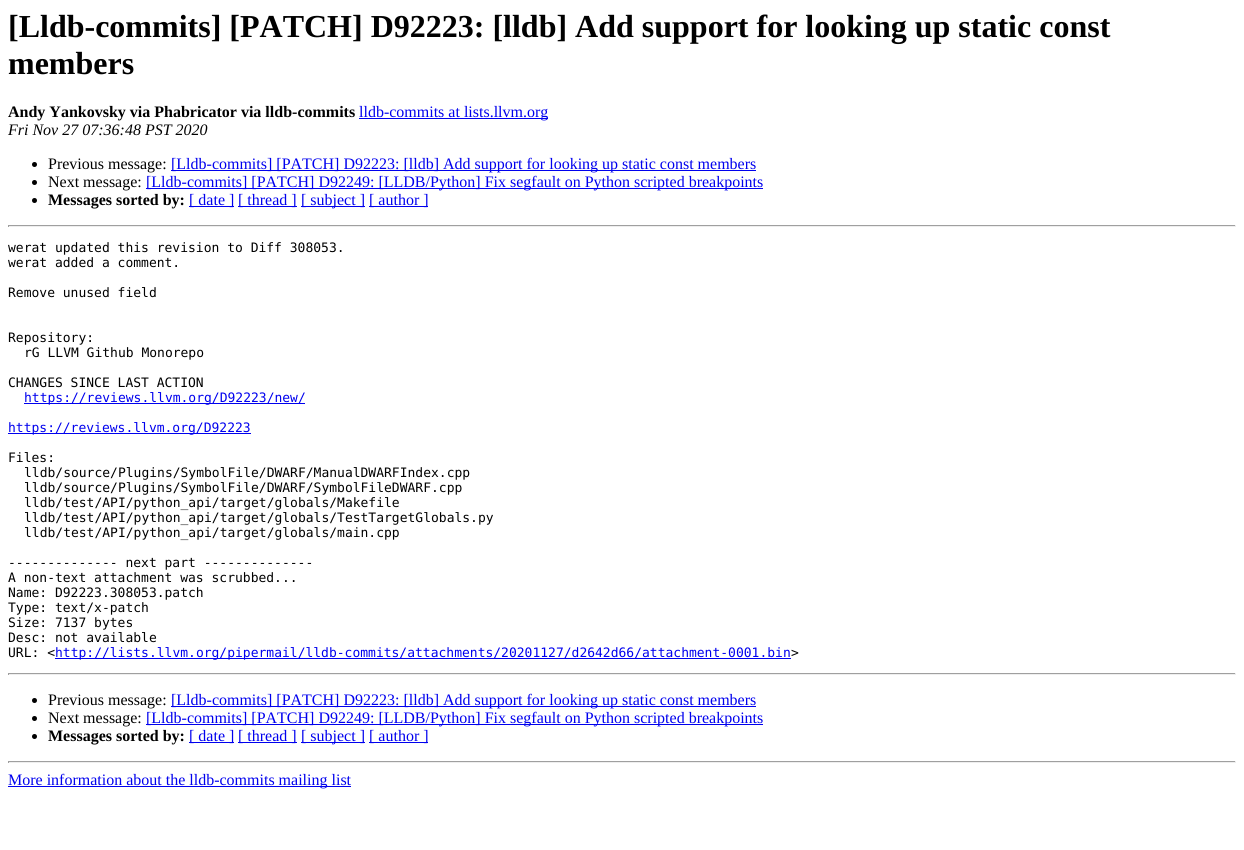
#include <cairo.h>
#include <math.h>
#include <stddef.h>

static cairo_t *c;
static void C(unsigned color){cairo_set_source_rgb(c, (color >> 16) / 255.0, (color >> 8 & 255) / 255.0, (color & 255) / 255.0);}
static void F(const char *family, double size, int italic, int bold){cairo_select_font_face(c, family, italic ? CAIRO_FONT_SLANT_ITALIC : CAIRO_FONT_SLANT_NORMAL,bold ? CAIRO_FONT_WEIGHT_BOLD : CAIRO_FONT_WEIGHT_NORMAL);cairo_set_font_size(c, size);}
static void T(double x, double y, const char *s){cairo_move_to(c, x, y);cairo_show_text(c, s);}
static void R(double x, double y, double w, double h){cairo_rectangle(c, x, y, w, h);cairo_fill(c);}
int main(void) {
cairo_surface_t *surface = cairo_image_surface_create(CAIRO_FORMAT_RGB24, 1244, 850);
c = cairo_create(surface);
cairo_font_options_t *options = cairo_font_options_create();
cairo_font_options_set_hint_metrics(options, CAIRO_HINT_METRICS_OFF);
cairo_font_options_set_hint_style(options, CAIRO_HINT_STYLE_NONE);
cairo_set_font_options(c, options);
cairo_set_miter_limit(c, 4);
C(0xffffff);
cairo_paint(c);
F("Liberation Serif",32,0,1);
C(0x000000);
T(8,37,"[Lldb-commits] [PATCH] D92223: [lldb] Add support for looking up static const");
T(8,74,"members");
F("Liberation Serif",16,0,1);
T(8,117,"Andy Yankovsky via Phabricator via lldb-commits");
C(0x0000ee);
R(359,118,189,1);
F("Liberation Serif",16,0,0);
T(359,117,"lldb-commits at lists.llvm.org");
F("Liberation Serif",16,1,0);
C(0x000000);
T(8,135,"Fri Nov 27 07:36:48 PST 2020");
cairo_new_path(c);
cairo_arc(c,34.5,164.5,2.5,0,2 * M_PI);
cairo_fill(c);
F("Liberation Serif",16,0,0);
T(48,169,"Previous message:");
C(0x0000ee);
R(171,170,585,1);
T(171,169,"[Lldb-commits] [PATCH] D92223: [lldb] Add support for looking up static const members");
C(0x000000);
cairo_new_path(c);
cairo_arc(c,34.5,182.5,2.5,0,2 * M_PI);
cairo_fill(c);
T(48,187,"Next message:");
C(0x0000ee);
R(146,188,617,1);
T(146,187,"[Lldb-commits] [PATCH] D92249: [LLDB/Python] Fix segfault on Python scripted breakpoints");
C(0x000000);
cairo_new_path(c);
cairo_arc(c,34.5,200.5,2.5,0,2 * M_PI);
cairo_fill(c);
F("Liberation Serif",16,0,1);
T(48,205,"Messages sorted by:");
C(0x0000ee);
R(189,206,45,1);
F("Liberation Serif",16,0,0);
T(189,205,"[ date ]");
R(238,206,59,1);
T(238,205,"[ thread ]");
R(301,206,64,1);
T(301,205,"[ subject ]");
R(369,206,59,1);
T(369,205,"[ author ]");
C(0x9f9f9f);
R(8,225,1228,1);
C(0xeeeeee);
R(1235,225,1,2);
R(8,226,1228,1);
C(0x9f9f9f);
R(8,225,1,2);
F("DejaVu Sans Mono",13,0,0);
C(0x000000);
T(8,252,"werat updated this revision to Diff 308053.");
T(8,267,"werat added a comment.");
T(8,297,"Remove unused field");
T(8,342,"Repository:");
T(24,357,"rG LLVM Github Monorepo");
T(8,387,"CHANGES SINCE LAST ACTION");
C(0x0000ee);
R(24,403,281,1);
T(24,402,"https://reviews.llvm.org/D92223/new/");
R(8,433,243,1);
T(8,432,"https://reviews.llvm.org/D92223");
C(0x000000);
T(8,462,"Files:");
T(24,477,"lldb/source/Plugins/SymbolFile/DWARF/ManualDWARFIndex.cpp");
T(24,492,"lldb/source/Plugins/SymbolFile/DWARF/SymbolFileDWARF.cpp");
T(24,507,"lldb/test/API/python_api/target/globals/Makefile");
T(24,522,"lldb/test/API/python_api/target/globals/TestTargetGlobals.py");
T(24,537,"lldb/test/API/python_api/target/globals/main.cpp");
T(8,567,"-------------- next part --------------");
T(8,582,"A non-text attachment was scrubbed...");
T(8,597,"Name: D92223.308053.patch");
T(8,612,"Type: text/x-patch");
T(8,627,"Size: 7137 bytes");
T(8,642,"Desc: not available");
T(8,657,"URL: <");
C(0x0000ee);
R(55,658,736,1);
T(55,657,"http://lists.llvm.org/pipermail/lldb-commits/attachments/20201127/d2642d66/attachment-0001.bin");
C(0x000000);
T(791,657,">");
C(0x9f9f9f);
R(8,673,1228,1);
C(0xeeeeee);
R(1235,673,1,2);
R(8,674,1228,1);
C(0x9f9f9f);
R(8,673,1,2);
C(0x000000);
cairo_new_path(c);
cairo_arc(c,34.5,700.5,2.5,0,2 * M_PI);
cairo_fill(c);
F("Liberation Serif",16,0,0);
T(48,705,"Previous message:");
C(0x0000ee);
R(171,706,585,1);
T(171,705,"[Lldb-commits] [PATCH] D92223: [lldb] Add support for looking up static const members");
C(0x000000);
cairo_new_path(c);
cairo_arc(c,34.5,718.5,2.5,0,2 * M_PI);
cairo_fill(c);
T(48,723,"Next message:");
C(0x0000ee);
R(146,724,617,1);
T(146,723,"[Lldb-commits] [PATCH] D92249: [LLDB/Python] Fix segfault on Python scripted breakpoints");
C(0x000000);
cairo_new_path(c);
cairo_arc(c,34.5,736.5,2.5,0,2 * M_PI);
cairo_fill(c);
F("Liberation Serif",16,0,1);
T(48,741,"Messages sorted by:");
C(0x0000ee);
R(189,742,45,1);
F("Liberation Serif",16,0,0);
T(189,741,"[ date ]");
R(238,742,59,1);
T(238,741,"[ thread ]");
R(301,742,64,1);
T(301,741,"[ subject ]");
R(369,742,59,1);
T(369,741,"[ author ]");
C(0x9f9f9f);
R(8,761,1228,1);
C(0xeeeeee);
R(1235,761,1,2);
R(8,762,1228,1);
C(0x9f9f9f);
R(8,761,1,2);
C(0x0000ee);
R(8,786,343,1);
T(8,785,"More information about the lldb-commits mailing list");
cairo_surface_write_to_png(surface, "o.png");
cairo_font_options_destroy(options);
cairo_destroy(c);
cairo_surface_destroy(surface);
return 0;
}
